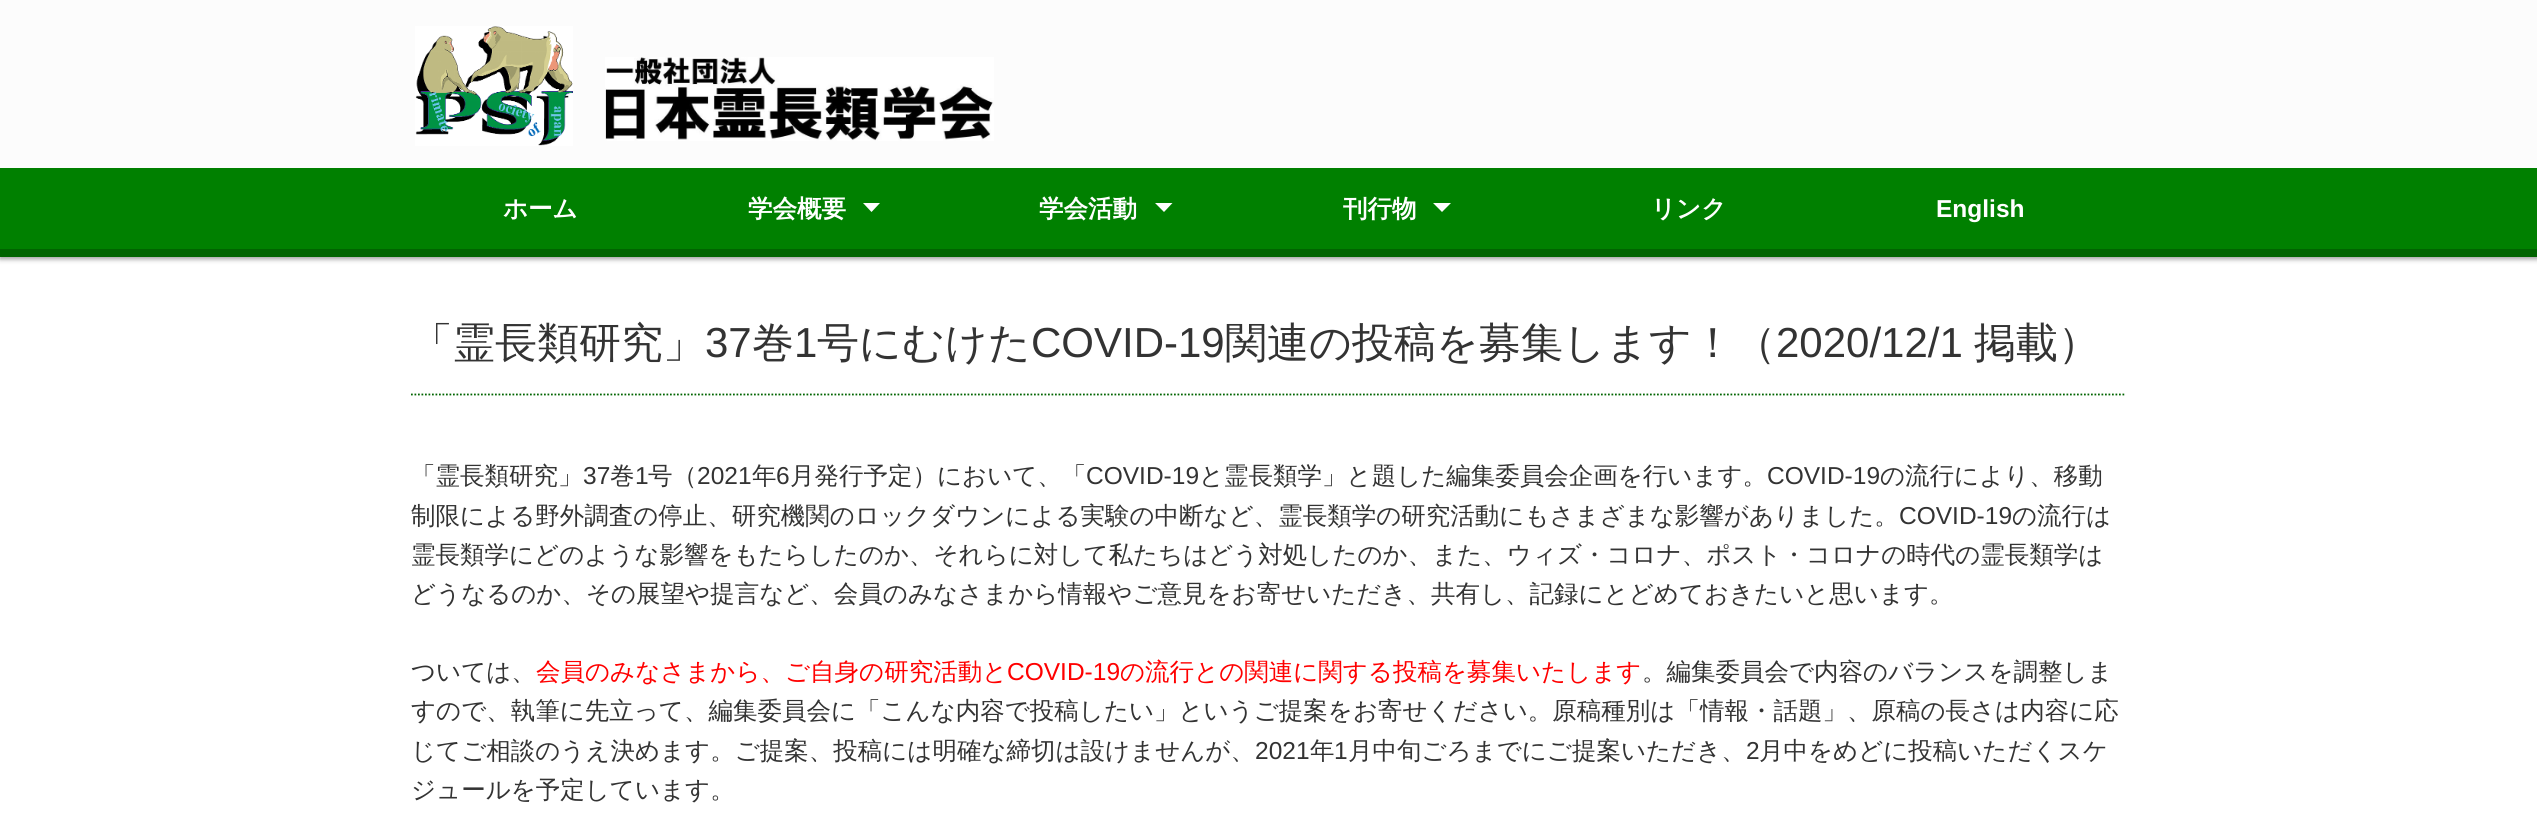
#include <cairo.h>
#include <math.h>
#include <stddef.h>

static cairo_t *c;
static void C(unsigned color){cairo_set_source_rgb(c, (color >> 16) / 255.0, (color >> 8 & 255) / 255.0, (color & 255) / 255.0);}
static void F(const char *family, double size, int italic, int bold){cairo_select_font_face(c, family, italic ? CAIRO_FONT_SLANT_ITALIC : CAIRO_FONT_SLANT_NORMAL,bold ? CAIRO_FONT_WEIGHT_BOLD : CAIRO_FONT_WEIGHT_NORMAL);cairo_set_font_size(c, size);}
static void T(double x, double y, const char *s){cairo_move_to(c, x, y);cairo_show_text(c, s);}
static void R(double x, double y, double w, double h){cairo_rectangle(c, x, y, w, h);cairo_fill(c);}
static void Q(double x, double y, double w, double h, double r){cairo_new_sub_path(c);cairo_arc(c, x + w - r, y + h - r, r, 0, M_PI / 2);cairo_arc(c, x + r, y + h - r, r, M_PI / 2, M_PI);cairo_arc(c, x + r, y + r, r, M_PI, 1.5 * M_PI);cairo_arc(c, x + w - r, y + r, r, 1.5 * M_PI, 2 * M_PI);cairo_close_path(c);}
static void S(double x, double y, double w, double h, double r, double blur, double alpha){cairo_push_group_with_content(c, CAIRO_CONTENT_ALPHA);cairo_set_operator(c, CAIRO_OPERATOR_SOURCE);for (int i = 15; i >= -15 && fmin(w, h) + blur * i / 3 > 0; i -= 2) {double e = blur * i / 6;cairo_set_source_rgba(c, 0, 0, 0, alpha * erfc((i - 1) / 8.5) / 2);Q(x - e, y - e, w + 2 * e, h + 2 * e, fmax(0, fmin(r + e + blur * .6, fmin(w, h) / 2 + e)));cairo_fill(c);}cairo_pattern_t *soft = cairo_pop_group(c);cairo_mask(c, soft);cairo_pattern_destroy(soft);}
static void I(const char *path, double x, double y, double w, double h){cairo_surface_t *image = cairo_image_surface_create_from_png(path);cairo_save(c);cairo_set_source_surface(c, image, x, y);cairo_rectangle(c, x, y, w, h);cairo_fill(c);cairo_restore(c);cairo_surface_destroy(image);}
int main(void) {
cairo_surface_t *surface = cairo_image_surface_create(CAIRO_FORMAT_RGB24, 2537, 814);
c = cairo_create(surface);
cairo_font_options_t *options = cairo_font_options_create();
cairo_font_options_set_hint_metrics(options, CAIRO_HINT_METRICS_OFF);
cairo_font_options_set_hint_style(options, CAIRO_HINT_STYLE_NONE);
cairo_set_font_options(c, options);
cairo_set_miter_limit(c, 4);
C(0xffffff);
cairo_paint(c);
C(0x999999);
S(0,170,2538,89,0,2.5,1);
C(0xfcfcfc);
R(0,0,2537,168);
I("1.png",415,26,158,120);
I("2.png",605,57,389,84);
C(0x008000);
R(0,168,2537,81);
C(0x006400);
R(0,249,2537,8);
F("WenQuanYi Zen Hei",24.5,0,1);
C(0xffffff);
T(503,217,"ホーム");
T(748,217,"学会概要");
cairo_new_path(c);
cairo_move_to(c,863,203);
cairo_line_to(c,880,203);
cairo_line_to(c,871.5,212);
cairo_close_path(c);
cairo_fill(c);
T(1039,217,"学会活動");
cairo_new_path(c);
cairo_move_to(c,1155,203);
cairo_line_to(c,1172.5,203);
cairo_line_to(c,1164,212);
cairo_close_path(c);
cairo_fill(c);
T(1343,217,"刊行物");
cairo_new_path(c);
cairo_move_to(c,1433,203);
cairo_line_to(c,1451,203);
cairo_line_to(c,1442,212);
cairo_close_path(c);
cairo_fill(c);
T(1651,217,"リンク");
F("Liberation Sans",24.5,0,1);
T(1936,217,"English");
cairo_new_path(c);
cairo_move_to(c,411,394.5);
cairo_line_to(c,2126,394.5);
C(0x006400);
cairo_set_line_width(c,1.8);
cairo_set_dash(c,(double[]){1.75,1.75},2,0);
cairo_stroke(c);
F("WenQuanYi Zen Hei Medium",42,0,0);
C(0x333333);
T(411,357,"「霊長類研究」");
F("Liberation Sans",42,0,0);
T(705,357,"37");
F("WenQuanYi Zen Hei Medium",42,0,0);
T(752,357,"巻");
F("Liberation Sans",42,0,0);
T(794,357,"1");
F("WenQuanYi Zen Hei Medium",42,0,0);
T(817,357,"号にむけた");
F("Liberation Sans",42,0,0);
T(1031,357,"COVID-19");
F("WenQuanYi Zen Hei Medium",42,0,0);
T(1225,357,"関連の投稿を募集します！（");
F("Liberation Sans",42,0,0);
T(1776,357,"2020/12/1");
F("WenQuanYi Zen Hei Medium",42,0,0);
T(1974,357,"掲載）");
F("WenQuanYi Zen Hei Medium",24.5,0,0);
T(411,484,"「霊長類研究」");
F("Liberation Sans",24.5,0,0);
T(583,484,"37");
F("WenQuanYi Zen Hei Medium",24.5,0,0);
T(610,484,"巻");
F("Liberation Sans",24.5,0,0);
T(635,484,"1");
F("WenQuanYi Zen Hei Medium",24.5,0,0);
T(648,484,"号（");
F("Liberation Sans",24.5,0,0);
T(697,484,"2021");
F("WenQuanYi Zen Hei Medium",24.5,0,0);
T(752,484,"年");
F("Liberation Sans",24.5,0,0);
T(776,484,"6");
F("WenQuanYi Zen Hei Medium",24.5,0,0);
T(790,484,"月発行予定）において、「");
F("Liberation Sans",24.5,0,0);
T(1086,484,"COVID-19");
F("WenQuanYi Zen Hei Medium",24.5,0,0);
T(1199,484,"と霊長類学」と題した編集委員会企画を行います。");
F("Liberation Sans",24.5,0,0);
T(1767,484,"COVID-19");
F("WenQuanYi Zen Hei Medium",24.5,0,0);
T(1880,484,"の流行により、移動");
T(411,524,"制限による野外調査の停止、研究機関のロックダウンによる実験の中断など、霊長類学の研究活動にもさまざまな影響がありました。");
F("Liberation Sans",24.5,0,0);
T(1899,524,"COVID-19");
F("WenQuanYi Zen Hei Medium",24.5,0,0);
T(2012,524,"の流行は");
T(411,563,"霊長類学にどのような影響をもたらしたのか、それらに対して私たちはどう対処したのか、また、ウィズ・コロナ、ポスト・コロナの時代の霊長類学は");
T(411,602,"どうなるのか、その展望や提言など、会員のみなさまから情報やご意見をお寄せいただき、共有し、記録にとどめておきたいと思います。");
T(411,680,"ついては、");
C(0xff0000);
T(536,680,"会員のみなさまから、ご自身の研究活動と");
F("Liberation Sans",24.5,0,0);
T(1007,680,"COVID-19");
F("WenQuanYi Zen Hei Medium",24.5,0,0);
T(1120,680,"の流行との関連に関する投稿を募集いたします");
C(0x333333);
T(1642,680,"。編集委員会で内容のバランスを調整しま");
T(411,719,"すので、執筆に先立って、編集委員会に「こんな内容で投稿したい」というご提案をお寄せください。原稿種別は「情報・話題」、原稿の長さは内容に応");
T(411,759,"じてご相談のうえ決めます。ご提案、投稿には明確な締切は設けませんが、");
F("Liberation Sans",24.5,0,0);
T(1255,759,"2021");
F("WenQuanYi Zen Hei Medium",24.5,0,0);
T(1310,759,"年");
F("Liberation Sans",24.5,0,0);
T(1334,759,"1");
F("WenQuanYi Zen Hei Medium",24.5,0,0);
T(1348,759,"月中旬ごろまでにご提案いただき、");
F("Liberation Sans",24.5,0,0);
T(1746,759,"2");
F("WenQuanYi Zen Hei Medium",24.5,0,0);
T(1759,759,"月中をめどに投稿いただくスケ");
T(411,798,"ジュールを予定しています。");
cairo_surface_write_to_png(surface, "o.png");
cairo_font_options_destroy(options);
cairo_destroy(c);
cairo_surface_destroy(surface);
return 0;
}
